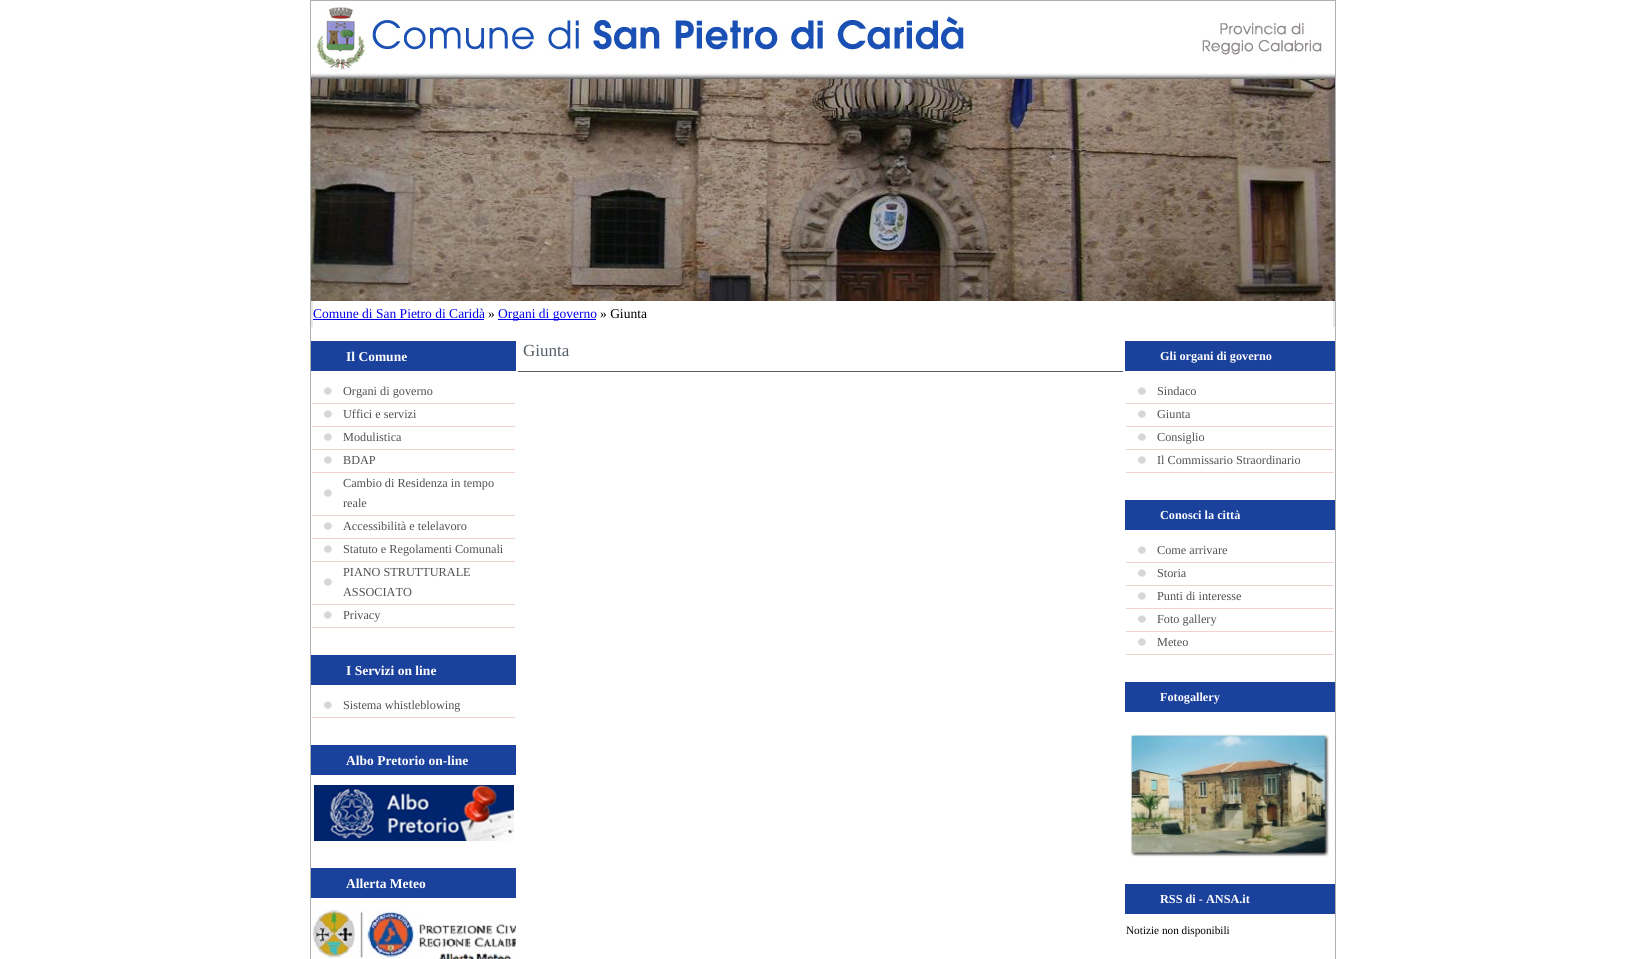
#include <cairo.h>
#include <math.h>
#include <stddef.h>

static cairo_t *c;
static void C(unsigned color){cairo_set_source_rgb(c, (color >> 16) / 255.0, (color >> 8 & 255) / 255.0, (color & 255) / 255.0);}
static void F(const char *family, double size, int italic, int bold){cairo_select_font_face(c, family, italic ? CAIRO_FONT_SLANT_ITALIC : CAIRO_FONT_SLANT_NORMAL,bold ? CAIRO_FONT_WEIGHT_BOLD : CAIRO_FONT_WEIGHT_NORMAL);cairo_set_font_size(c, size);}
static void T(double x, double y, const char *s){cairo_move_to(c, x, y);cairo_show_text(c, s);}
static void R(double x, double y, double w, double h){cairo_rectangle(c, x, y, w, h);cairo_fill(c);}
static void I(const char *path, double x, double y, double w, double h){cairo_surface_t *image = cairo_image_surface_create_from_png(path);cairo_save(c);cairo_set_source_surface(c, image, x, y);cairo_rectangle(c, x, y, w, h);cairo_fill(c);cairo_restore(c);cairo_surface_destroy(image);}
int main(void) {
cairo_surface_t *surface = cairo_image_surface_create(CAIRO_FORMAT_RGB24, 1646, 959);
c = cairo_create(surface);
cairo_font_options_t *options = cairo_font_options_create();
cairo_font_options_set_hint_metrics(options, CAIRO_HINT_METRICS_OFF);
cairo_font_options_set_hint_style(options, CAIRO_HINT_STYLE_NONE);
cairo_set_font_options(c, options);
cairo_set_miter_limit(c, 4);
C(0xffffff);
cairo_paint(c);
cairo_rectangle(c,310.5,.5,1025,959);
C(0xaeafaf);
cairo_set_line_width(c,1);
cairo_stroke(c);
I("1.png",311,4,1024,297);
C(0xe8e8e8);
R(311,301,1024,26);
C(0xffffff);
R(313,301,1020,26);
F("Liberation Serif",13.5,0,0);
C(0x0000ee);
T(313,318,"Comune di San Pietro di Caridà");
R(313,319,171,1);
C(0x000000);
T(488,318,"»");
C(0x0000ee);
R(498,319,98,1);
T(498,318,"Organi di governo");
C(0x000000);
T(600,318,"» Giunta");
I("2.png",311,341,205,30);
F("Liberation Serif",13.5,0,1);
C(0xffffff);
T(346,361,"Il Comune");
C(0xf3d1ce);
R(312,403,203,1);
I("3.png",324,387,8,8);
F("Liberation Serif",12.25,0,0);
C(0x4f504f);
T(343,395,"Organi di governo");
C(0xf3d1ce);
R(312,426,203,1);
I("3.png",324,410,8,8);
C(0x4f504f);
T(343,418,"Uffici e servizi");
C(0xf3d1ce);
R(312,449,203,1);
I("3.png",324,433,8,8);
C(0x4f504f);
T(343,441,"Modulistica");
C(0xf3d1ce);
R(312,472,203,1);
I("3.png",324,456,8,8);
C(0x4f504f);
T(343,464,"BDAP");
C(0xf3d1ce);
R(312,515,203,1);
I("3.png",324,489,8,8);
C(0x4f504f);
T(343,487,"Cambio di Residenza in tempo");
T(343,507,"reale");
C(0xf3d1ce);
R(312,538,203,1);
I("3.png",324,522,8,8);
C(0x4f504f);
T(343,530,"Accessibilità e telelavoro");
C(0xf3d1ce);
R(312,561,203,1);
I("3.png",324,545,8,8);
C(0x4f504f);
T(343,553,"Statuto e Regolamenti Comunali");
C(0xf3d1ce);
R(312,604,203,1);
I("3.png",324,578,8,8);
C(0x4f504f);
T(343,576,"PIANO STRUTTURALE");
T(343,596,"ASSOCIATO");
C(0xf3d1ce);
R(312,627,203,1);
I("3.png",324,611,8,8);
C(0x4f504f);
T(343,619,"Privacy");
I("2.png",311,655,205,30);
F("Liberation Serif",13.5,0,1);
C(0xffffff);
T(346,675,"I Servizi on line");
C(0xf3d1ce);
R(312,717,203,1);
I("3.png",324,701,8,8);
F("Liberation Serif",12.25,0,0);
C(0x4f504f);
T(343,709,"Sistema whistleblowing");
I("2.png",311,745,205,30);
F("Liberation Serif",13.5,0,1);
C(0xffffff);
T(346,765,"Albo Pretorio on-line");
I("4.png",314,785,200,56);
I("2.png",311,868,205,30);
T(346,888,"Allerta Meteo");
I("5.png",312,908,204,51);
C(0x545d65);
R(518,371,605,1);
F("Liberation Serif",17,0,0);
T(523,356,"Giunta");
I("6.png",1125,341,210,30);
F("Liberation Serif",12.25,0,1);
C(0xffffff);
T(1160,360,"Gli organi di governo");
C(0xf3d1ce);
R(1126,403,208,1);
I("3.png",1138,387,8,8);
F("Liberation Serif",12.25,0,0);
C(0x4f504f);
T(1157,395,"Sindaco");
C(0xf3d1ce);
R(1126,426,208,1);
I("3.png",1138,410,8,8);
C(0x4f504f);
T(1157,418,"Giunta");
C(0xf3d1ce);
R(1126,449,208,1);
I("3.png",1138,433,8,8);
C(0x4f504f);
T(1157,441,"Consiglio");
C(0xf3d1ce);
R(1126,472,208,1);
I("3.png",1138,456,8,8);
C(0x4f504f);
T(1157,464,"Il Commissario Straordinario");
I("6.png",1125,500,210,30);
F("Liberation Serif",12.25,0,1);
C(0xffffff);
T(1160,519,"Conosci la città");
C(0xf3d1ce);
R(1126,562,208,1);
I("3.png",1138,546,8,8);
F("Liberation Serif",12.25,0,0);
C(0x4f504f);
T(1157,554,"Come arrivare");
C(0xf3d1ce);
R(1126,585,208,1);
I("3.png",1138,569,8,8);
C(0x4f504f);
T(1157,577,"Storia");
C(0xf3d1ce);
R(1126,608,208,1);
I("3.png",1138,592,8,8);
C(0x4f504f);
T(1157,600,"Punti di interesse");
C(0xf3d1ce);
R(1126,631,208,1);
I("3.png",1138,615,8,8);
C(0x4f504f);
T(1157,623,"Foto gallery");
C(0xf3d1ce);
R(1126,654,208,1);
I("3.png",1138,638,8,8);
C(0x4f504f);
T(1157,646,"Meteo");
I("6.png",1125,682,210,30);
F("Liberation Serif",12.25,0,1);
C(0xffffff);
T(1160,701,"Fotogallery");
I("7.png",1130,734,199,123);
I("6.png",1125,884,210,30);
T(1160,903,"RSS di - ANSA.it");
F("Liberation Serif",11.25,0,0);
C(0x000000);
T(1126,934,"Notizie non disponibili");
cairo_surface_write_to_png(surface, "o.png");
cairo_font_options_destroy(options);
cairo_destroy(c);
cairo_surface_destroy(surface);
return 0;
}
